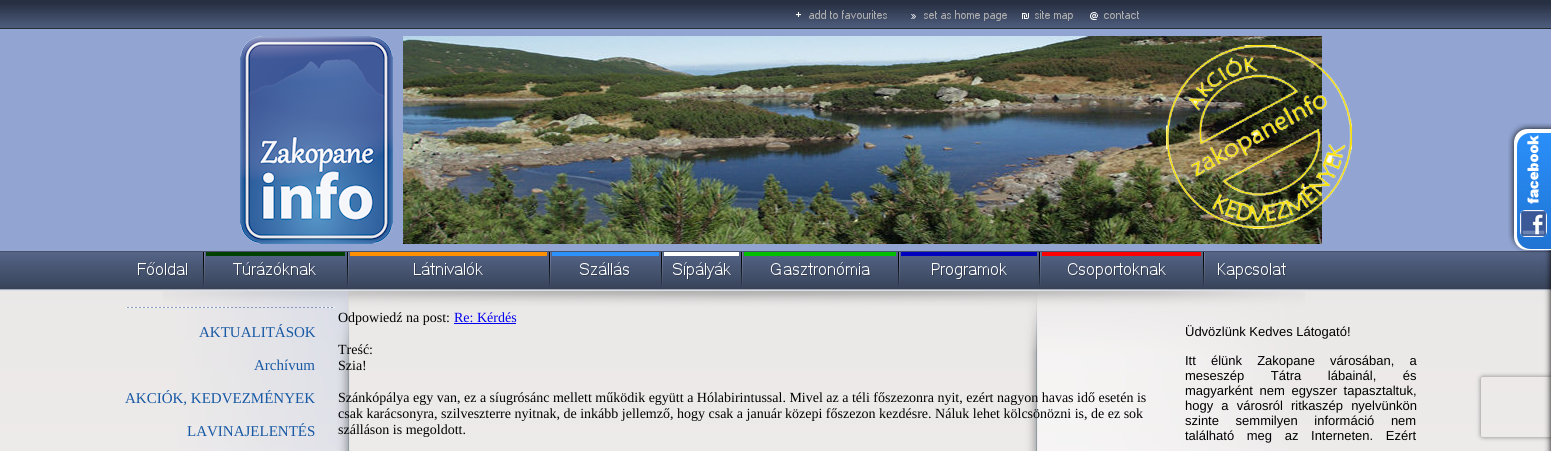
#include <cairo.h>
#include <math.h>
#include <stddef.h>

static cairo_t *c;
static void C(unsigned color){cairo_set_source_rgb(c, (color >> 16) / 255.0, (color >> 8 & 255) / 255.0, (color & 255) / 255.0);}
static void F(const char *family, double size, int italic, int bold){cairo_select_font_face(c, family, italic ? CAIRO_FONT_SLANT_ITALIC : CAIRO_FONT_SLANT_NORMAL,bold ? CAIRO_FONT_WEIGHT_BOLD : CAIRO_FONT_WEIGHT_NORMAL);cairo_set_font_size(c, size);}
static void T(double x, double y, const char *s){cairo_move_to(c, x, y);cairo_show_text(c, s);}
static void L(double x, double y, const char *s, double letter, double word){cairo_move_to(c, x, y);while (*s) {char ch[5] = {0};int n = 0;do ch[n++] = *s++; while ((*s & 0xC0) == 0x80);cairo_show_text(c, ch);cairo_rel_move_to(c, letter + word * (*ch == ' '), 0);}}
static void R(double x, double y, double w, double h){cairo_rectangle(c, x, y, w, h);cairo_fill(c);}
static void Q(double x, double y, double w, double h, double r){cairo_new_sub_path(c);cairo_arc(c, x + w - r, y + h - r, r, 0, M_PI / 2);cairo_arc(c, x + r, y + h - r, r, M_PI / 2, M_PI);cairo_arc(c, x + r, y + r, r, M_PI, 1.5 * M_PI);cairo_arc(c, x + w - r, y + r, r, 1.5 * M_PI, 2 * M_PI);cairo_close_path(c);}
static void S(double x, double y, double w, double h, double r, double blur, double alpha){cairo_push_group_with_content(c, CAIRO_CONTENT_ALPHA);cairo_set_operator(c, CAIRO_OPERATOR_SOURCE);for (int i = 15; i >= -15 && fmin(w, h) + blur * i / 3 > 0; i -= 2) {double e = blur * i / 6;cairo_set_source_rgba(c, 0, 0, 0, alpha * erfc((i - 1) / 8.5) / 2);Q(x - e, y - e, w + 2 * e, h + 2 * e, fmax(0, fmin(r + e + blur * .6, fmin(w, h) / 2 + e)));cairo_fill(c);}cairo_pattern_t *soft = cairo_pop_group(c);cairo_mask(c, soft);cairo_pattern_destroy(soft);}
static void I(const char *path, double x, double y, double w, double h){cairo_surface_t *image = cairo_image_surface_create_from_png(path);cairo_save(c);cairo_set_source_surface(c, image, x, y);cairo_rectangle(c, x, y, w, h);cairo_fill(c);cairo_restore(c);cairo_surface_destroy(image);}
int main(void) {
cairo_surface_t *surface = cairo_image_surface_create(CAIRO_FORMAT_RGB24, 1551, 451);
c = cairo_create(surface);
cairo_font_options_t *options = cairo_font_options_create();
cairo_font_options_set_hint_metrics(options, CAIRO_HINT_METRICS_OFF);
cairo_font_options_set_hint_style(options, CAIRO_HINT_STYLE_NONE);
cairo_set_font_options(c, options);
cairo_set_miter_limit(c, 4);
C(0xffffff);
cairo_paint(c);
I("1.png",0,0,1551,451);
I("6.png",403,36,919,208);
I("2.png",1166,45,186,184);
cairo_save(c);
cairo_set_fill_rule(c,CAIRO_FILL_RULE_EVEN_ODD);
cairo_new_path(c);
cairo_move_to(c,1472,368);
cairo_line_to(c,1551,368);
cairo_line_to(c,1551,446);
cairo_line_to(c,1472,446);
cairo_close_path(c);
cairo_move_to(c,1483,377);
cairo_line_to(c,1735,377);
cairo_curve_to(c,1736,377,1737,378,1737,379);
cairo_line_to(c,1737,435);
cairo_curve_to(c,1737,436,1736,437,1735,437);
cairo_line_to(c,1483,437);
cairo_curve_to(c,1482,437,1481,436,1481,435);
cairo_line_to(c,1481,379);
cairo_curve_to(c,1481,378,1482,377,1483,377);
cairo_close_path(c);
cairo_clip(c);
C(0x808080);
S(1481,377,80,60,2,2.5,1);
cairo_restore(c);
I("3.png",1508,123,43,328);
I("4.png",796,10,343,11);
I("5.png",240,36,153,208);
I("7.png",138,252,66,35);
I("8.png",204,252,144,35);
I("9.png",348,252,202,35);
I("10.png",550,252,112,35);
I("11.png",662,252,80,35);
I("12.png",742,252,157,35);
I("13.png",899,252,141,35);
I("14.png",1040,252,164,35);
I("15.png",1204,252,83,33);
I("16.png",163,291,1142,160);
I("17.png",125,307,210,1);
F("Liberation Serif",15,0,0);
C(0x1658a4);
T(199,337,"AKTUALITÁSOK");
T(254,370,"Archívum");
T(125,403,"AKCIÓK, KEDVEZMÉNYEK");
T(187,436,"LAVINAJELENTÉS");
F("Liberation Serif",14,0,0);
C(0x000000);
T(338,322,"Odpowiedź na post:");
C(0x0000ee);
T(454,322,"Re: Kérdés");
R(454,323,62,1);
C(0x000000);
T(338,354,"Treść:");
T(338,370,"Szia!");
T(338,402,"Szánkópálya egy van, ez a síugrósánc mellett működik együtt a Hólabirintussal. Mivel az a téli főszezonra nyit, ezért nagyon havas idő esetén is");
T(338,418,"csak karácsonyra, szilveszterre nyitnak, de inkább jellemző, hogy csak a január közepi főszezon kezdésre. Náluk lehet kölcsönözni is, de ez sok");
T(338,434,"szálláson is megoldott.");
F("Liberation Sans",13,0,0);
T(1185,336,"Üdvözlünk Kedves Látogató!");
L(1185,365,"Itt élünk Zakopane városában, a",0,11.5);
L(1185,380,"meseszép Tátra lábainál, és",0,23);
L(1185,395,"magyarként nem egyszer tapasztaltuk,",0,3);
L(1185,410,"hogy a városról ritkaszép nyelvünkön",0,4.5);
L(1185,425,"szinte semmilyen információ nem",0,13);
L(1185,440,"található meg az Interneten. Ezért",0,9);
cairo_surface_write_to_png(surface, "o.png");
cairo_font_options_destroy(options);
cairo_destroy(c);
cairo_surface_destroy(surface);
return 0;
}
